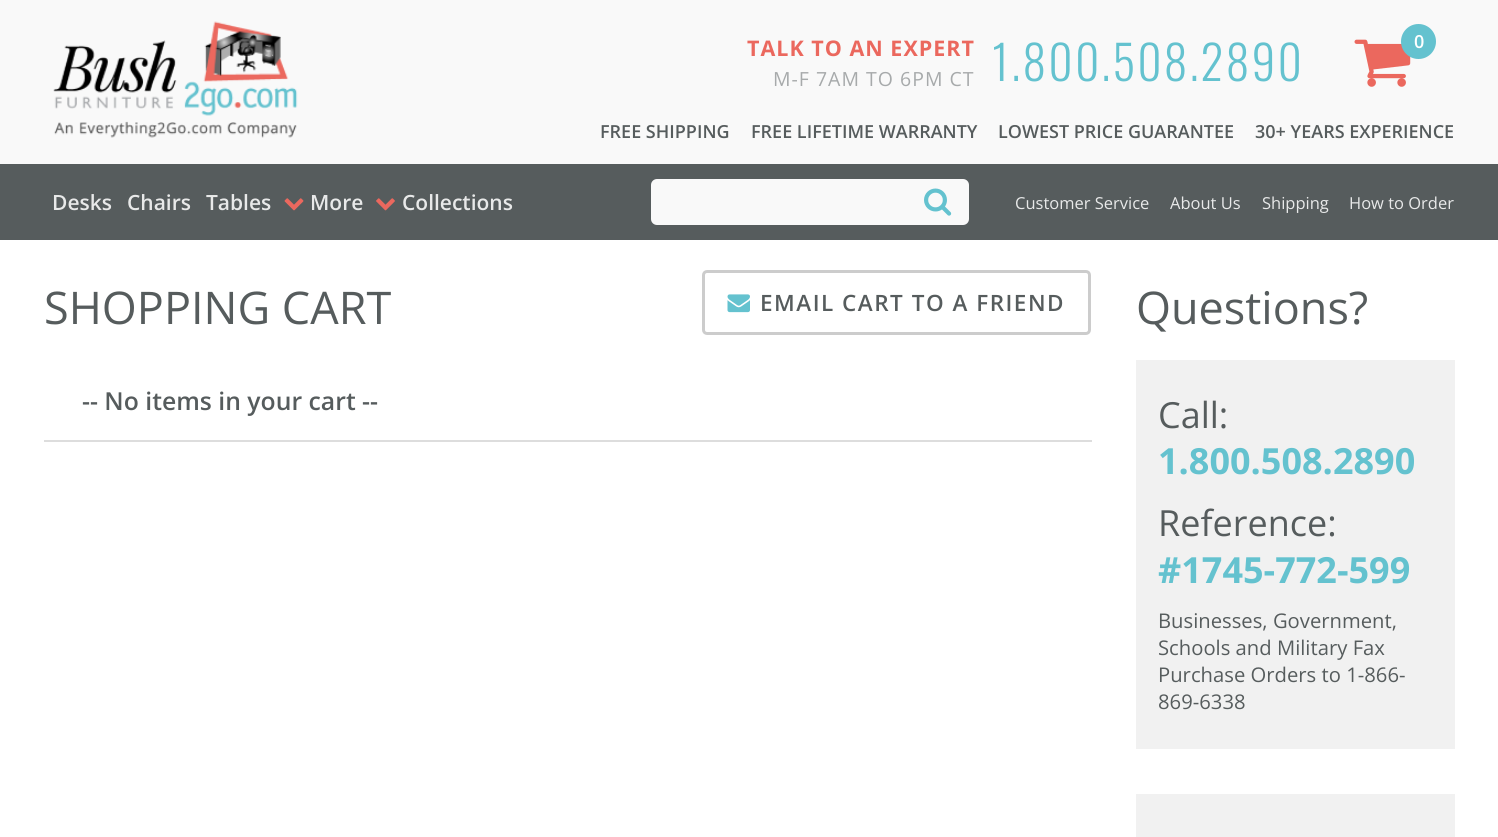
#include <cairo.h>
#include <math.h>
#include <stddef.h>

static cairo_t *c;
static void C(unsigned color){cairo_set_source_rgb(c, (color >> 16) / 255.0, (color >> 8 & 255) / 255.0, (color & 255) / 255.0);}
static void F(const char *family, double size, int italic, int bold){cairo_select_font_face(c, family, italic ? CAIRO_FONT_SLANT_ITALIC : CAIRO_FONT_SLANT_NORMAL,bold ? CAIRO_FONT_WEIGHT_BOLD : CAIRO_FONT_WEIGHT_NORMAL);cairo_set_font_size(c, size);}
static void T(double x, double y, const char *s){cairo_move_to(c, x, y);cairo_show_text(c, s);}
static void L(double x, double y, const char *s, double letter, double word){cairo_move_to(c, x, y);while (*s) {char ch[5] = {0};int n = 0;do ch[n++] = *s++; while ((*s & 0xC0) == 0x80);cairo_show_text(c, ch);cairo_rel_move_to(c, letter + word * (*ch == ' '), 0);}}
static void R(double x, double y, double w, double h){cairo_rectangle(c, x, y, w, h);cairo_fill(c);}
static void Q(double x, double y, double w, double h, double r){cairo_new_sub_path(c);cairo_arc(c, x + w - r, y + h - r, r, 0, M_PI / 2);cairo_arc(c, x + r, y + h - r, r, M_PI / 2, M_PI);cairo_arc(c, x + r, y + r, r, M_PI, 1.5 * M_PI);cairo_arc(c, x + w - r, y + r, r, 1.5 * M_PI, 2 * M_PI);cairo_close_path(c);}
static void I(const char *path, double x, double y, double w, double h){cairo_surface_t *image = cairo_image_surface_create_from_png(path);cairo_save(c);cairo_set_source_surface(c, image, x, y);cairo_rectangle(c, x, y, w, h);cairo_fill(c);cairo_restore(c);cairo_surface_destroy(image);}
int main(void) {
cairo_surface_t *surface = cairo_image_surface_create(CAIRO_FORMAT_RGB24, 1498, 837);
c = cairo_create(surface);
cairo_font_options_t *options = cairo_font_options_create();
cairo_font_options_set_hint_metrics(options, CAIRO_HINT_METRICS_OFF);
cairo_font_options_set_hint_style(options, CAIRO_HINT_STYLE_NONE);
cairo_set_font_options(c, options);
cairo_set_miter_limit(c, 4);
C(0xffffff);
cairo_paint(c);
C(0x565c5d);
R(0,164,1498,76);
F("Open Sans SemiBold",21,0,0);
C(0xe8e9e9);
T(52,210,"Desks");
T(127,210,"Chairs");
T(206,210,"Tables");
I("1.png",284,198,20,13);
T(310,210,"More");
I("2.png",376,198,19,13);
T(402,210,"Collections");
C(0xf9f9f9);
Q(651,179,318,46,6);
cairo_fill(c);
I("3.png",924,188,28,28);
R(0,0,1498,164);
I("4.png",1354,39,57,48);
C(0x64c2cf);
cairo_arc(c,1418.5,41.5,17.5,0,2 * M_PI);
cairo_fill(c);
F("Open Sans SemiBold",18,0,0);
C(0xffffff);
T(1414,48,"0");
F("Open Sans",16.5,0,0);
C(0xe8e9e9);
T(1015,209,"Customer Service");
T(1170,209,"About Us");
T(1262,209,"Shipping");
T(1349,209,"How to Order");
I("5.png",53,21,245,117);
F("Open Sans",21.5,0,1);
C(0xeb685e);
L(747,56,"TALK TO AN EXPERT",1,0);
F("Open Sans",19.5,0,0);
C(0xa7aaab);
L(773,86,"M-F 7AM TO 6PM CT",1,0);
F("Oswald Light",47.25,0,0);
C(0x64c2cf);
L(992,81,"1.800.508.2890",2.25,0);
F("Open Sans SemiBold",18,0,0);
C(0x565c5d);
T(600,138,"FREE SHIPPING");
T(751,138,"FREE LIFETIME WARRANTY");
T(998,138,"LOWEST PRICE GUARANTEE");
T(1255,138,"30+ YEARS EXPERIENCE");
F("Open Sans",45,0,0);
T(44,324,"SHOPPING CART");
Q(703.5,271.5,386,62,3.5);
C(0xcccccc);
cairo_set_line_width(c,3);
cairo_stroke(c);
I("6.png",727,294,23,19);
F("Open Sans SemiBold",22.5,0,0);
C(0x565c5d);
L(760,311,"EMAIL CART TO A FRIEND",1.5,0);
C(0xdddddd);
R(44,440,1048,2);
F("Open Sans SemiBold",24.75,0,0);
C(0x565c5d);
T(82,410,"-- No items in your cart --");
F("Open Sans",45,0,0);
T(1136,324,"Questions?");
C(0xf1f1f1);
R(1136,360,319,389);
F("Open Sans",36,0,0);
C(0x565c5d);
T(1158,428,"Call:");
F("Open Sans",36,0,1);
C(0x64c2cf);
T(1158,474,"1.800.508.2890");
F("Open Sans",36,0,0);
C(0x565c5d);
T(1158,536,"Reference:");
F("Open Sans",36,0,1);
C(0x64c2cf);
T(1158,583,"#1745-772-599");
F("Open Sans",20.25,0,0);
C(0x565c5d);
T(1158,628,"Businesses, Government,");
T(1158,655,"Schools and Military Fax");
T(1158,682,"Purchase Orders to 1-866-");
T(1158,709,"869-6338");
C(0xf1f1f1);
R(1136,794,319,43);
cairo_surface_write_to_png(surface, "o.png");
cairo_font_options_destroy(options);
cairo_destroy(c);
cairo_surface_destroy(surface);
return 0;
}
